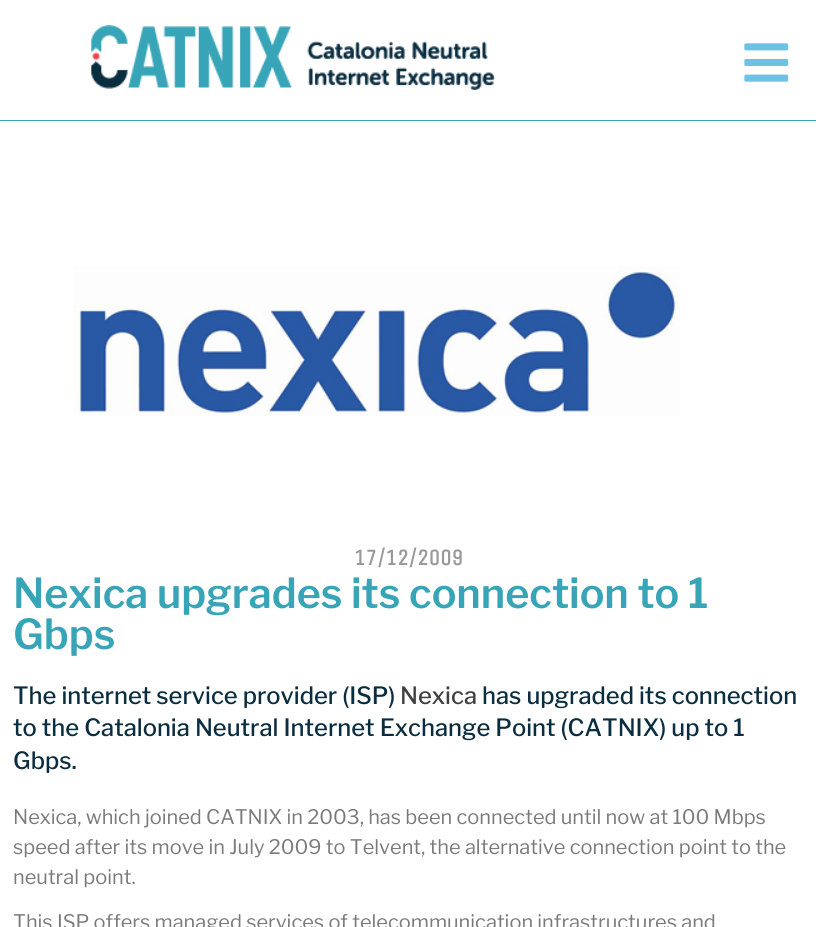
#include <cairo.h>
#include <math.h>
#include <stddef.h>

static cairo_t *c;
static void C(unsigned color){cairo_set_source_rgb(c, (color >> 16) / 255.0, (color >> 8 & 255) / 255.0, (color & 255) / 255.0);}
static void F(const char *family, double size, int italic, int bold){cairo_select_font_face(c, family, italic ? CAIRO_FONT_SLANT_ITALIC : CAIRO_FONT_SLANT_NORMAL,bold ? CAIRO_FONT_WEIGHT_BOLD : CAIRO_FONT_WEIGHT_NORMAL);cairo_set_font_size(c, size);}
static void T(double x, double y, const char *s){cairo_move_to(c, x, y);cairo_show_text(c, s);}
static void R(double x, double y, double w, double h){cairo_rectangle(c, x, y, w, h);cairo_fill(c);}
static void I(const char *path, double x, double y, double w, double h){cairo_surface_t *image = cairo_image_surface_create_from_png(path);cairo_save(c);cairo_set_source_surface(c, image, x, y);cairo_rectangle(c, x, y, w, h);cairo_fill(c);cairo_restore(c);cairo_surface_destroy(image);}
int main(void) {
cairo_surface_t *surface = cairo_image_surface_create(CAIRO_FORMAT_RGB24, 816, 927);
c = cairo_create(surface);
cairo_font_options_t *options = cairo_font_options_create();
cairo_font_options_set_hint_metrics(options, CAIRO_HINT_METRICS_OFF);
cairo_font_options_set_hint_style(options, CAIRO_HINT_STYLE_NONE);
cairo_set_font_options(c, options);
cairo_set_miter_limit(c, 4);
C(0xffffff);
cairo_paint(c);
C(0x37a5b7);
R(0,120,816,1);
I("1.png",91,25,405,65);
I("2.png",744,43,45,39);
I("3.png",73,266,607,150);
F("Unica One",22.5,0,1);
C(0x999999);
T(354,565,"17/12/2009");
F("Libre Franklin SemiBold",41.25,0,0);
C(0x37a5b7);
T(13,608,"Nexica upgrades its connection to 1");
T(13,649,"Gbps");
F("Libre Franklin Medium",23.75,0,0);
C(0x0a2d40);
T(13,704,"The internet service provider (ISP)");
C(0x404040);
T(400,704,"Nexica");
C(0x0a2d40);
T(482,704,"has upgraded its connection");
T(13,736,"to the Catalonia Neutral Internet Exchange Point (CATNIX) up to 1");
T(13,769,"Gbps.");
F("Libre Franklin",20,0,0);
C(0x7a7a7a);
T(13,824,"Nexica, which joined CATNIX in 2003, has been connected until now at 100 Mbps");
T(13,854,"speed after its move in July 2009 to Telvent, the alternative connection point to the");
T(13,884,"neutral point.");
T(13,929,"This ISP offers managed services of telecommunication infrastructures and");
cairo_surface_write_to_png(surface, "o.png");
cairo_font_options_destroy(options);
cairo_destroy(c);
cairo_surface_destroy(surface);
return 0;
}
